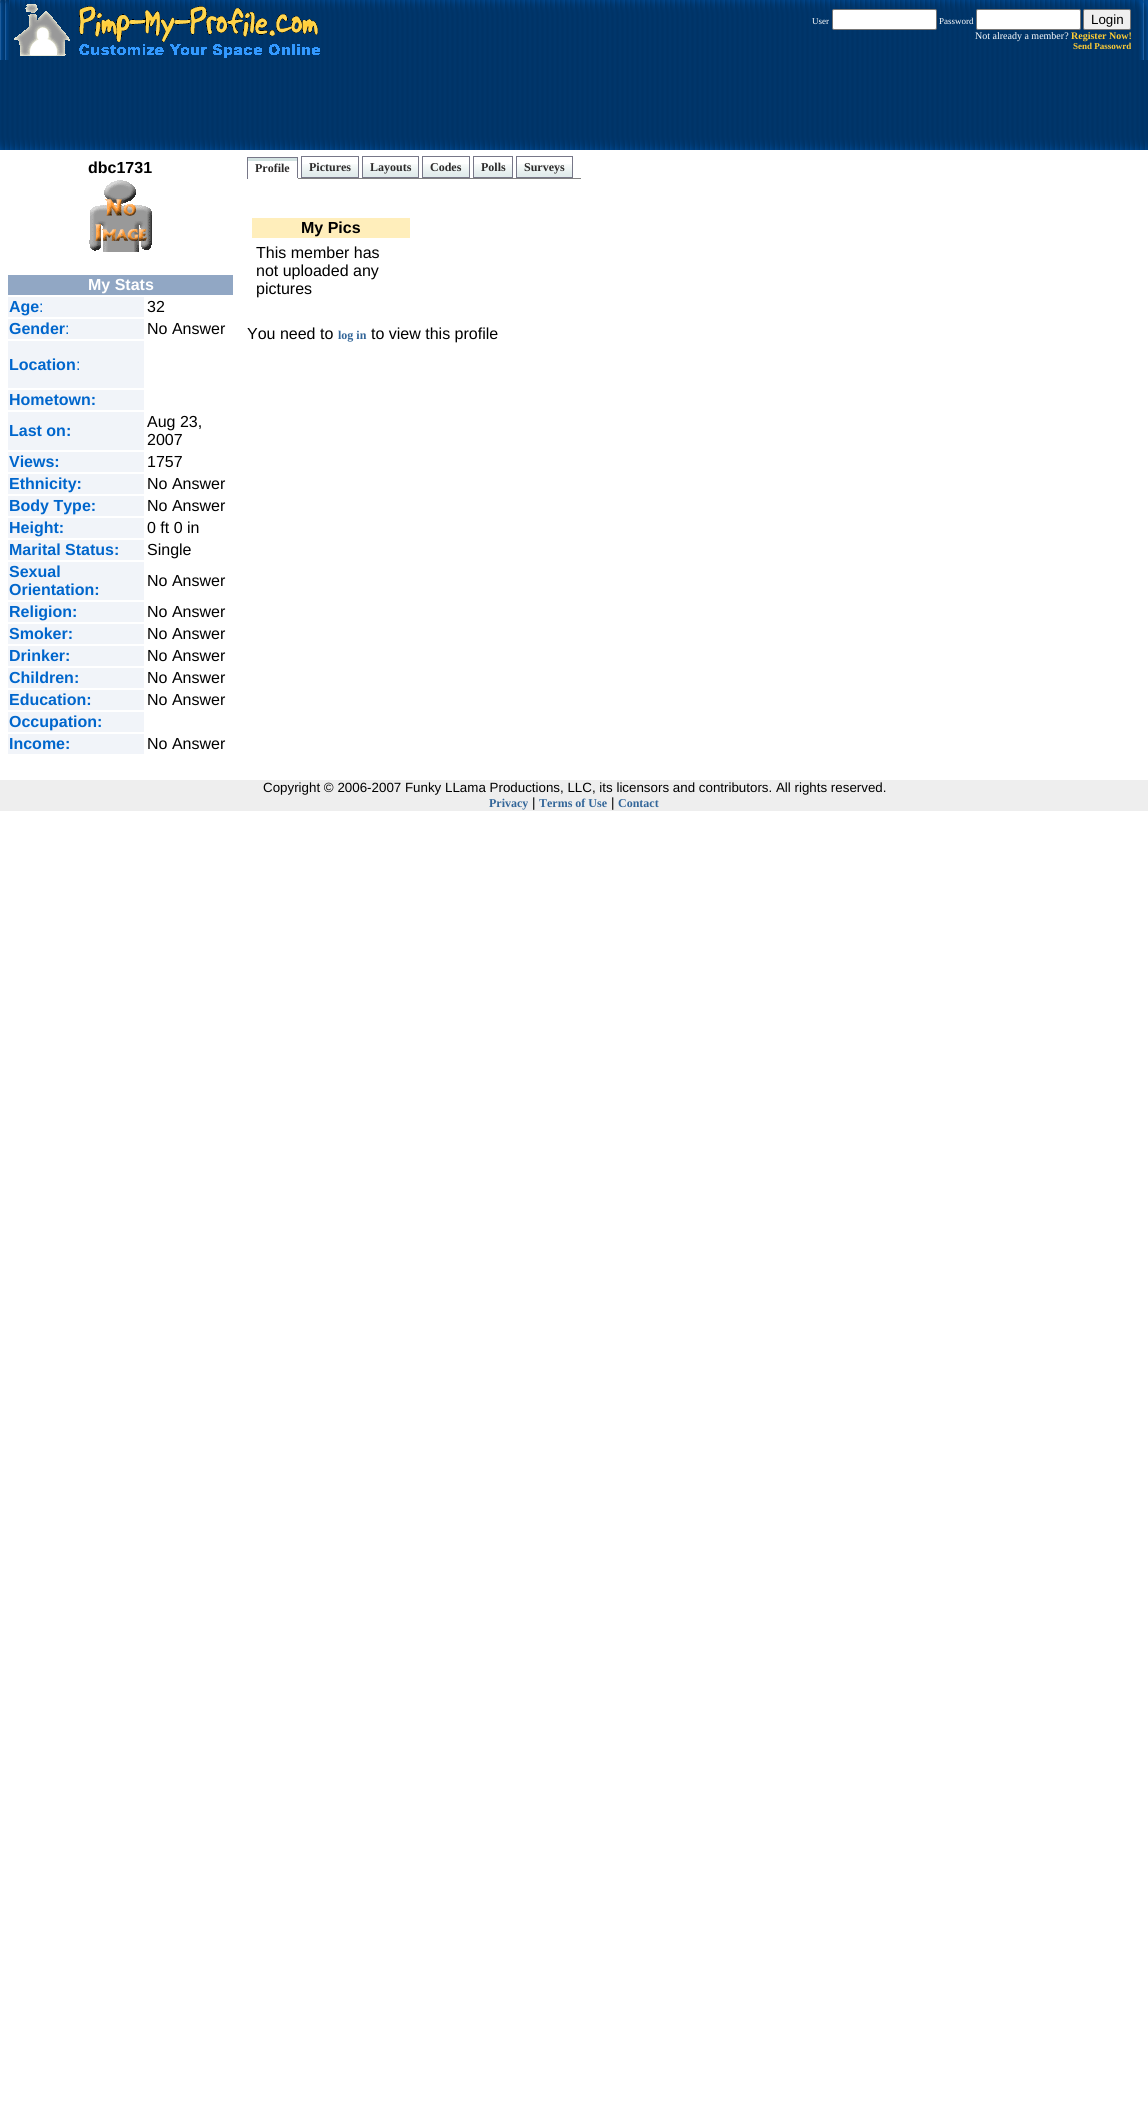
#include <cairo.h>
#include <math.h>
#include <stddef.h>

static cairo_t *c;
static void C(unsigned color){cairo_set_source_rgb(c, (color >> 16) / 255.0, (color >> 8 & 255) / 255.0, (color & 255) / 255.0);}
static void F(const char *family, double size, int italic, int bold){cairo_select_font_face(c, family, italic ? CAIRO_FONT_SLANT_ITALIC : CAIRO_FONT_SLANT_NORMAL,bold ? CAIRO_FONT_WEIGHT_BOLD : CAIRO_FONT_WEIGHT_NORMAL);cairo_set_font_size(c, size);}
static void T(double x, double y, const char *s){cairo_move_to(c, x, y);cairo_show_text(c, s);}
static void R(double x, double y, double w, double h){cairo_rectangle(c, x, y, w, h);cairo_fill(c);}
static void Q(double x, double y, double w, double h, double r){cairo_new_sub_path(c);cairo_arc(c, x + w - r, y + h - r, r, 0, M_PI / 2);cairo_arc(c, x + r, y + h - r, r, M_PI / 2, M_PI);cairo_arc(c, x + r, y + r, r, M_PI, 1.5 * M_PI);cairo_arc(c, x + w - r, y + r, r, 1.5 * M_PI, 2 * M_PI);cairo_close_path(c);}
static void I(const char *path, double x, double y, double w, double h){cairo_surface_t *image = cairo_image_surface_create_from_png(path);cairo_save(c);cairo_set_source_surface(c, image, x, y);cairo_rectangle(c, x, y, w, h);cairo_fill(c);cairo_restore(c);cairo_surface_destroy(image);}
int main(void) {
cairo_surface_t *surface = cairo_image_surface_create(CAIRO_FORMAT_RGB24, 1148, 2103);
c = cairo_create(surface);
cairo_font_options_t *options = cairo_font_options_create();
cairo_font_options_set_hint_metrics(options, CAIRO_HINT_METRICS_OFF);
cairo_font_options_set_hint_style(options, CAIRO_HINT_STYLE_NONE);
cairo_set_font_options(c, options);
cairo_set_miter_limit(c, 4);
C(0xffffff);
cairo_paint(c);
I("1.png",0,0,1148,150);
I("2.png",0,0,9,60);
I("3.png",14,4,306,54);
F("Liberation Serif",9,0,0);
C(0xffffff);
T(812,24,"User");
Q(832.5,9.5,104,20,1.5);
cairo_fill_preserve(c);
C(0x767676);
cairo_set_line_width(c,1);
cairo_stroke(c);
C(0xffffff);
T(939,24,"Password");
Q(976.5,9.5,104,20,1.5);
cairo_fill_preserve(c);
C(0x767676);
cairo_stroke(c);
C(0xefefef);
Q(1083.5,9.5,47,20,1.5);
cairo_fill_preserve(c);
C(0x767676);
cairo_stroke(c);
F("Liberation Sans",13.35,0,0);
C(0x000000);
T(1091,24,"Login");
F("Liberation Serif",10,0,0);
C(0xffffff);
T(975,39,"Not already a member?");
F("Liberation Serif",10,0,1);
C(0xffcc33);
T(1071,39,"Register Now!");
F("Liberation Serif",9,0,1);
T(1073,49,"Send Passowrd");
I("4.png",1139,0,9,60);
F("Liberation Sans",16,0,1);
C(0x000000);
T(88,173,"dbc1731");
I("5.png",89,180,63,72);
C(0x91a7c4);
R(8,275,225,20);
C(0xffffff);
T(88,290,"My Stats");
C(0xf1f4f9);
R(8,297,136,20);
C(0x0066cc);
T(9,312,"Age");
F("Liberation Sans",16,0,0);
T(39,312,":");
C(0x000000);
T(147,312,"32");
C(0xf1f4f9);
R(8,319,136,20);
F("Liberation Sans",16,0,1);
C(0x0066cc);
T(9,334,"Gender");
F("Liberation Sans",16,0,0);
T(65,334,":");
C(0x000000);
T(147,334,"No Answer");
C(0xf1f4f9);
R(8,341,136,47);
F("Liberation Sans",16,0,1);
C(0x0066cc);
T(9,370,"Location");
F("Liberation Sans",16,0,0);
T(76,370,":");
C(0xf1f4f9);
R(8,390,136,20);
F("Liberation Sans",16,0,1);
C(0x0066cc);
T(9,405,"Hometown:");
C(0xf1f4f9);
R(8,412,136,38);
C(0x0066cc);
T(9,436,"Last on:");
F("Liberation Sans",16,0,0);
C(0x000000);
T(147,427,"Aug 23,");
T(147,445,"2007");
C(0xf1f4f9);
R(8,452,136,20);
F("Liberation Sans",16,0,1);
C(0x0066cc);
T(9,467,"Views:");
F("Liberation Sans",16,0,0);
C(0x000000);
T(147,467,"1757");
C(0xf1f4f9);
R(8,474,136,20);
F("Liberation Sans",16,0,1);
C(0x0066cc);
T(9,489,"Ethnicity:");
F("Liberation Sans",16,0,0);
C(0x000000);
T(147,489,"No Answer");
C(0xf1f4f9);
R(8,496,136,20);
F("Liberation Sans",16,0,1);
C(0x0066cc);
T(9,511,"Body Type:");
F("Liberation Sans",16,0,0);
C(0x000000);
T(147,511,"No Answer");
C(0xf1f4f9);
R(8,518,136,20);
F("Liberation Sans",16,0,1);
C(0x0066cc);
T(9,533,"Height:");
F("Liberation Sans",16,0,0);
C(0x000000);
T(147,533,"0 ft 0 in");
C(0xf1f4f9);
R(8,540,136,20);
F("Liberation Sans",16,0,1);
C(0x0066cc);
T(9,555,"Marital Status:");
F("Liberation Sans",16,0,0);
C(0x000000);
T(147,555,"Single");
C(0xf1f4f9);
R(8,562,136,38);
F("Liberation Sans",16,0,1);
C(0x0066cc);
T(9,577,"Sexual");
T(9,595,"Orientation:");
F("Liberation Sans",16,0,0);
C(0x000000);
T(147,586,"No Answer");
C(0xf1f4f9);
R(8,602,136,20);
F("Liberation Sans",16,0,1);
C(0x0066cc);
T(9,617,"Religion:");
F("Liberation Sans",16,0,0);
C(0x000000);
T(147,617,"No Answer");
C(0xf1f4f9);
R(8,624,136,20);
F("Liberation Sans",16,0,1);
C(0x0066cc);
T(9,639,"Smoker:");
F("Liberation Sans",16,0,0);
C(0x000000);
T(147,639,"No Answer");
C(0xf1f4f9);
R(8,646,136,20);
F("Liberation Sans",16,0,1);
C(0x0066cc);
T(9,661,"Drinker:");
F("Liberation Sans",16,0,0);
C(0x000000);
T(147,661,"No Answer");
C(0xf1f4f9);
R(8,668,136,20);
F("Liberation Sans",16,0,1);
C(0x0066cc);
T(9,683,"Children:");
F("Liberation Sans",16,0,0);
C(0x000000);
T(147,683,"No Answer");
C(0xf1f4f9);
R(8,690,136,20);
F("Liberation Sans",16,0,1);
C(0x0066cc);
T(9,705,"Education:");
F("Liberation Sans",16,0,0);
C(0x000000);
T(147,705,"No Answer");
C(0xf1f4f9);
R(8,712,136,20);
F("Liberation Sans",16,0,1);
C(0x0066cc);
T(9,727,"Occupation:");
C(0xf1f4f9);
R(8,734,136,20);
C(0x0066cc);
T(9,749,"Income:");
F("Liberation Sans",16,0,0);
C(0x000000);
T(147,749,"No Answer");
C(0x808080);
R(298,178,283,1);
F("Liberation Serif",12,0,1);
C(0x2d2b2b);
T(255,172,"Profile");
C(0xd3e3e2);
R(247,158,51,3);
C(0x777788);
R(247,157,51,1);
R(297,157,1,22);
C(0xffffff);
R(297,178,1,1);
C(0x777788);
R(247,157,1,22);
I("6.png",302,164,56,13);
cairo_rectangle(c,301.5,156.5,57,21);
cairo_stroke(c);
C(0x2d2b2b);
T(309,171,"Pictures");
I("7.png",363,164,55,13);
cairo_rectangle(c,362.5,156.5,56,21);
C(0x777788);
cairo_stroke(c);
C(0x2d2b2b);
T(370,171,"Layouts");
I("8.png",423,164,46,13);
cairo_rectangle(c,422.5,156.5,47,21);
C(0x777788);
cairo_stroke(c);
C(0x2d2b2b);
T(430,171,"Codes");
I("9.png",474,164,38,13);
cairo_rectangle(c,473.5,156.5,39,21);
C(0x777788);
cairo_stroke(c);
C(0x2d2b2b);
T(481,171,"Polls");
I("7.png",517,164,55,13);
cairo_rectangle(c,516.5,156.5,56,21);
C(0x777788);
cairo_stroke(c);
C(0x2d2b2b);
T(524,171,"Surveys");
C(0xffeebb);
R(252,218,158,20);
F("Liberation Sans",16,0,1);
C(0x000000);
T(301,233,"My Pics");
F("Liberation Sans",16,0,0);
T(256,258,"This member has");
T(256,276,"not uploaded any");
T(256,294,"pictures");
T(247,339,"You need to");
F("Liberation Serif",12,0,1);
C(0x336699);
T(338,339,"log in");
F("Liberation Sans",16,0,0);
C(0x000000);
T(371,339,"to view this profile");
C(0xeeeeee);
R(0,780,1148,31);
F("Liberation Sans",13.35,0,0);
C(0x000000);
T(263,792,"Copyright © 2006-2007 Funky LLama Productions, LLC, its licensors and contributors. All rights reserved.");
F("Liberation Serif",12,0,1);
C(0x336699);
T(489,807,"Privacy");
F("Liberation Sans",13.35,0,0);
C(0x000000);
T(532,807,"|");
F("Liberation Serif",12,0,1);
C(0x336699);
T(539,807,"Terms of Use");
F("Liberation Sans",13.35,0,0);
C(0x000000);
T(611,807,"|");
F("Liberation Serif",12,0,1);
C(0x336699);
T(618,807,"Contact");
cairo_surface_write_to_png(surface, "o.png");
cairo_font_options_destroy(options);
cairo_destroy(c);
cairo_surface_destroy(surface);
return 0;
}
